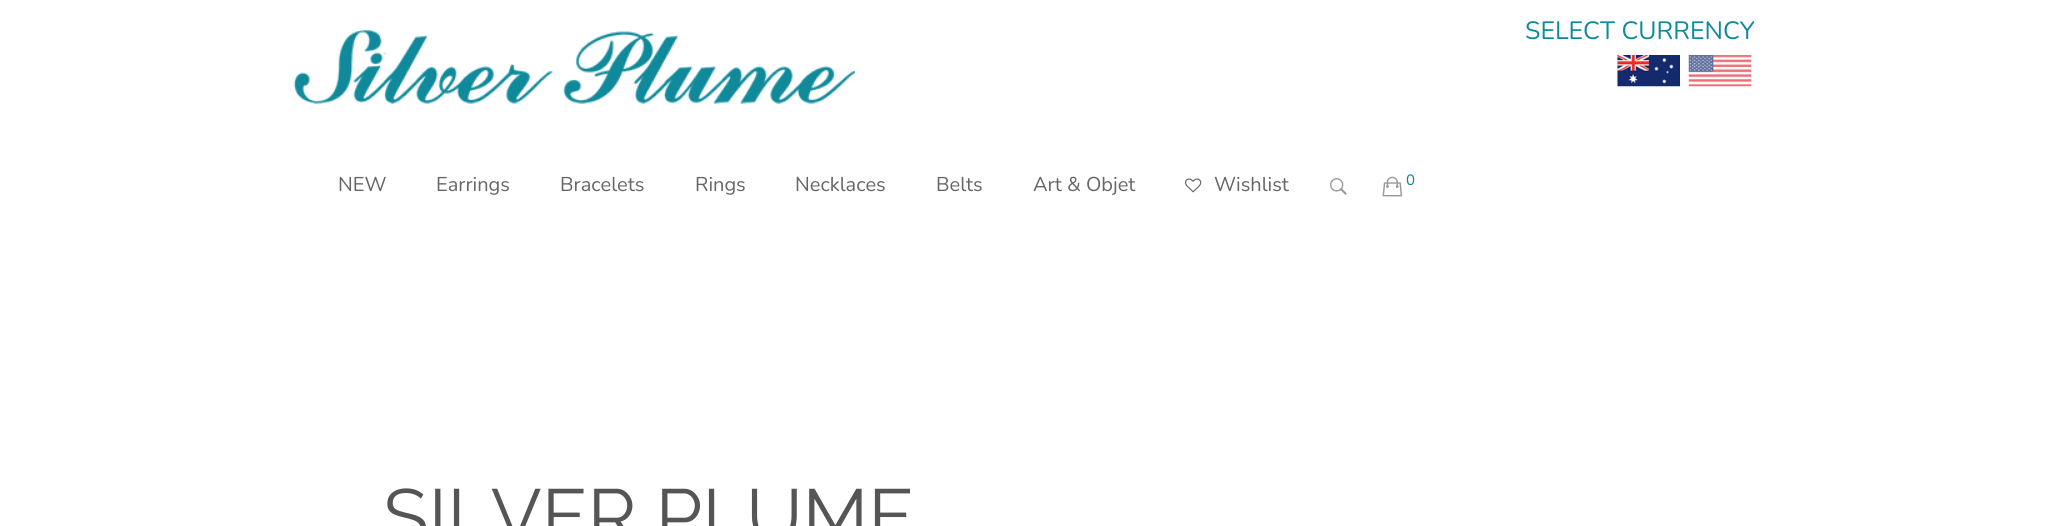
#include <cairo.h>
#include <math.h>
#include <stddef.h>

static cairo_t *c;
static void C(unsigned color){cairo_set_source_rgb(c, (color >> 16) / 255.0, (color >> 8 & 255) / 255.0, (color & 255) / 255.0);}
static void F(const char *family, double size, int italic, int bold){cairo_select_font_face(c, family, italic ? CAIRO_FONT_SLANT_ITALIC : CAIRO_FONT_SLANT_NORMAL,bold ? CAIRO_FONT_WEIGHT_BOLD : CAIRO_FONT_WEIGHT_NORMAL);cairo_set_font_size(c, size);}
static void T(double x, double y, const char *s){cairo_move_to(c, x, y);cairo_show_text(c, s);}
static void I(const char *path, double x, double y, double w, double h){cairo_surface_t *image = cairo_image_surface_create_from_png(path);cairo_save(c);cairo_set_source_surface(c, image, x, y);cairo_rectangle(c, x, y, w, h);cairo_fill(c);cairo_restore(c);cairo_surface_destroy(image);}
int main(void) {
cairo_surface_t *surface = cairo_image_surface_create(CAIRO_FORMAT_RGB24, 2047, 526);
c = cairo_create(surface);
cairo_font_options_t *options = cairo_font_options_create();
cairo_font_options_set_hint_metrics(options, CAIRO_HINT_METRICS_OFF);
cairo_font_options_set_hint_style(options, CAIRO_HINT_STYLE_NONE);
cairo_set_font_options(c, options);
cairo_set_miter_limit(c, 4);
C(0xffffff);
cairo_paint(c);
I("1.png",293,29,562,75);
F("Nunito",25,0,0);
C(0x108a9b);
T(1525,39,"SELECT CURRENCY");
I("2.png",1617,55,63,32);
I("3.png",1688,55,64,32);
F("Nunito",20,0,0);
C(0x666666);
T(338,191,"NEW");
T(436,191,"Earrings");
T(560,191,"Bracelets");
T(695,191,"Rings");
T(795,191,"Necklaces");
T(936,191,"Belts");
T(1033,191,"Art & Objet");
I("4.png",1185,178,17,15);
T(1214,191,"Wishlist");
I("5.png",1330,178,17,17);
I("6.png",1382,176,21,21);
F("Nunito Medium",15,0,0);
C(0x108a9b);
T(1406,185,"0");
F("Raleway",75,0,0);
C(0x555555);
T(383,542,"SILVER PLUME");
cairo_surface_write_to_png(surface, "o.png");
cairo_font_options_destroy(options);
cairo_destroy(c);
cairo_surface_destroy(surface);
return 0;
}
